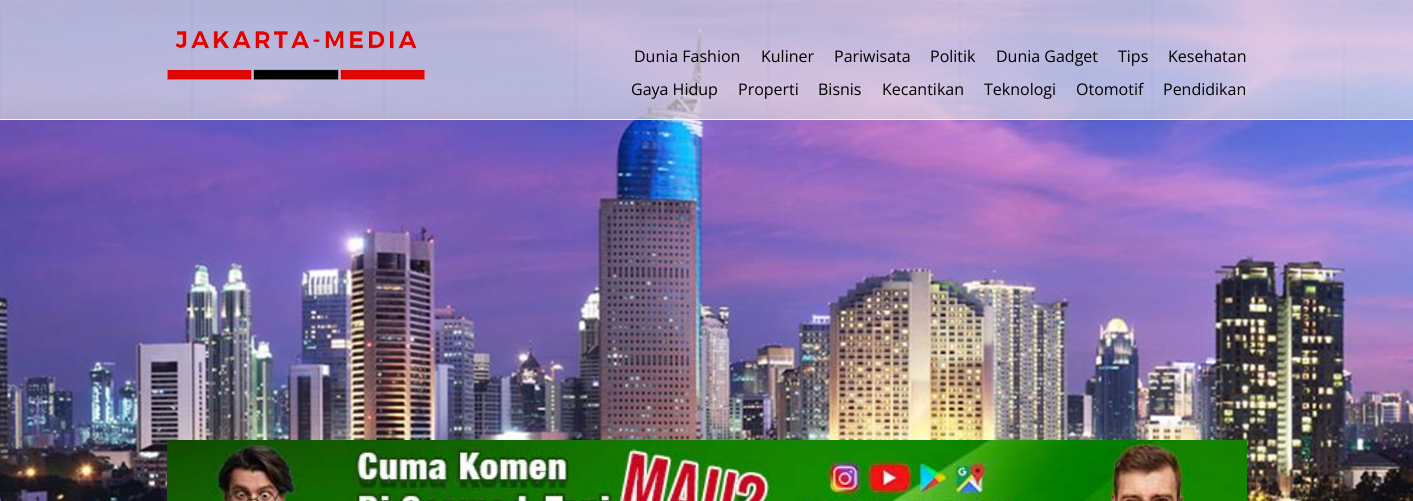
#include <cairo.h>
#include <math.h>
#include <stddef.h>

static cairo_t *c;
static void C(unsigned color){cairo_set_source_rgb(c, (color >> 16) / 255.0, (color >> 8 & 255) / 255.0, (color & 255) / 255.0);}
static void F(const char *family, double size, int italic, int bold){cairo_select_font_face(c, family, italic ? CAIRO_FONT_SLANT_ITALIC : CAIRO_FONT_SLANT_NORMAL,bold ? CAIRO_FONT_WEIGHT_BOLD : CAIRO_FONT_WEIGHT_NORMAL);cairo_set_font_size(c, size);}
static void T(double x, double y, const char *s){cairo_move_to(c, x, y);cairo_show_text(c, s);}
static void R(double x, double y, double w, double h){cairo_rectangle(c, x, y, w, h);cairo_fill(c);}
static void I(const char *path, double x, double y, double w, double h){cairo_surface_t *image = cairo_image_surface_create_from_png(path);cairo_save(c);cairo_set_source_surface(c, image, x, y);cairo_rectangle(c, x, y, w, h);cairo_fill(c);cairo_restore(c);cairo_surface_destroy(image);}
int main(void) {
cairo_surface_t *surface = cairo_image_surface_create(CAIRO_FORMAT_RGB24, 1413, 501);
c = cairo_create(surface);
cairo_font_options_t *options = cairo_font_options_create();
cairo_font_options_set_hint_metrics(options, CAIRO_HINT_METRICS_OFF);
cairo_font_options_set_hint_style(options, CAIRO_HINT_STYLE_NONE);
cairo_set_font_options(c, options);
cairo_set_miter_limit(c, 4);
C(0xffffff);
cairo_paint(c);
I("1.png",0,0,1413,501);
I("2.png",0,0,1413,119);
C(0xf9f9f9);
R(0,119,1413,1);
I("3.png",167,31,258,49);
F("Open Sans",16,0,0);
C(0x000000);
T(634,62,"Dunia Fashion");
T(761,62,"Kuliner");
T(834,62,"Pariwisata");
T(930,62,"Politik");
T(996,62,"Dunia Gadget");
T(1118,62,"Tips");
T(1168,62,"Kesehatan");
T(631,95,"Gaya Hidup");
T(738,95,"Properti");
T(818,95,"Bisnis");
T(882,95,"Kecantikan");
T(984,95,"Teknologi");
T(1076,95,"Otomotif");
T(1163,95,"Pendidikan");
I("4.png",167,440,1080,61);
cairo_surface_write_to_png(surface, "o.png");
cairo_font_options_destroy(options);
cairo_destroy(c);
cairo_surface_destroy(surface);
return 0;
}
